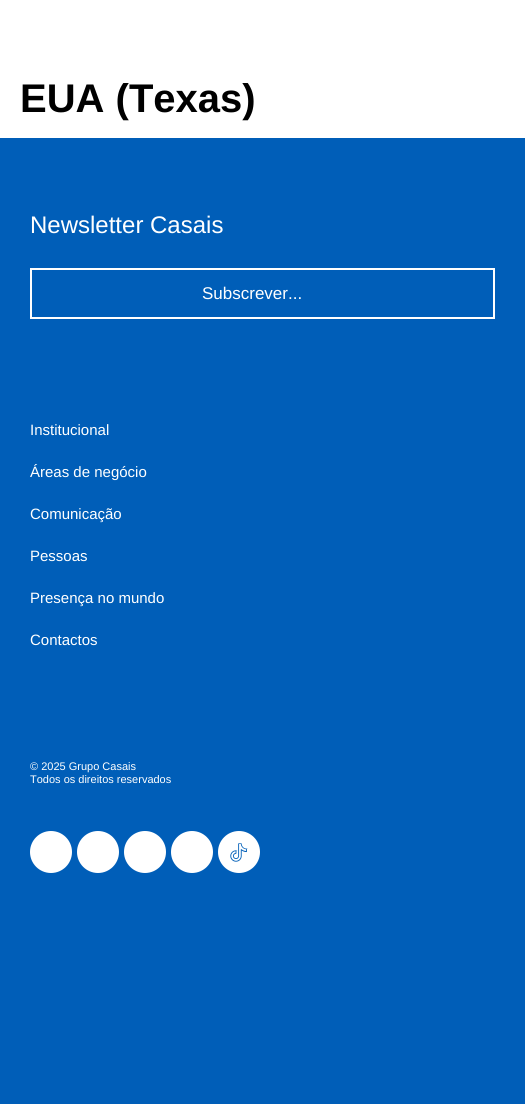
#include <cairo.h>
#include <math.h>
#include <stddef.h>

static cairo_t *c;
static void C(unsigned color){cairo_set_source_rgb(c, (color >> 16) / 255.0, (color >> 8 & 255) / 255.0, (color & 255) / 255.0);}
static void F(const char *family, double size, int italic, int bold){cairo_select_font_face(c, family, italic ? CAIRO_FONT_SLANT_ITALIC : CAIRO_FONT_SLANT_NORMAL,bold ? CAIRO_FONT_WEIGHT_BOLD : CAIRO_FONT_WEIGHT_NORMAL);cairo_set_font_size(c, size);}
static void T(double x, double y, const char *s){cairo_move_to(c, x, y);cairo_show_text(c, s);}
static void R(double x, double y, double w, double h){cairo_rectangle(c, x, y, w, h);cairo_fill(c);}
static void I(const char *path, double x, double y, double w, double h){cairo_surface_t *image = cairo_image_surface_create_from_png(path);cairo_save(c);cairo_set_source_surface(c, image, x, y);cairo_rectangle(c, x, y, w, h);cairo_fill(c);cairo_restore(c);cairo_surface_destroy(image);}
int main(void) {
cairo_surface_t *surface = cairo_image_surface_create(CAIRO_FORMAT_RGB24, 525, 1104);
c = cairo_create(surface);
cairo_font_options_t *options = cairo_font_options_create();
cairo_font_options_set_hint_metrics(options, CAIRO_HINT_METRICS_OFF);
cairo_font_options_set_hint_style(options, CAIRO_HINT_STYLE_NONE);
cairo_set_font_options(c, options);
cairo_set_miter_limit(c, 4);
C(0xffffff);
cairo_paint(c);
F("Liberation Sans",40,0,1);
C(0x000000);
T(20,112,"EUA (Texas)");
C(0x005eb8);
R(0,138,525,966);
F("Liberation Sans",24,0,0);
C(0xffffff);
T(30,233,"Newsletter Casais");
cairo_rectangle(c,31,269,463,49);
cairo_stroke(c);
F("Liberation Sans",17,0,0);
T(202,299,"Subscrever...");
F("Liberation Sans",15,0,0);
T(30,435,"Institucional");
T(30,477,"Áreas de negócio");
T(30,519,"Comunicação");
T(30,561,"Pessoas");
T(30,603,"Presença no mundo");
T(30,645,"Contactos");
F("Liberation Sans",11,0,0);
T(30,770,"© 2025 Grupo Casais");
T(30,783,"Todos os direitos reservados");
cairo_new_path(c);
cairo_arc(c,51,852,21,0,2 * M_PI);
cairo_fill(c);
cairo_arc(c,98,852,21,0,2 * M_PI);
cairo_fill(c);
cairo_arc(c,145,852,21,0,2 * M_PI);
cairo_fill(c);
cairo_arc(c,192,852,21,0,2 * M_PI);
cairo_fill(c);
cairo_arc(c,239,852,21,0,2 * M_PI);
cairo_fill(c);
I("1.png",230,843,18,19);
cairo_surface_write_to_png(surface, "o.png");
cairo_font_options_destroy(options);
cairo_destroy(c);
cairo_surface_destroy(surface);
return 0;
}
